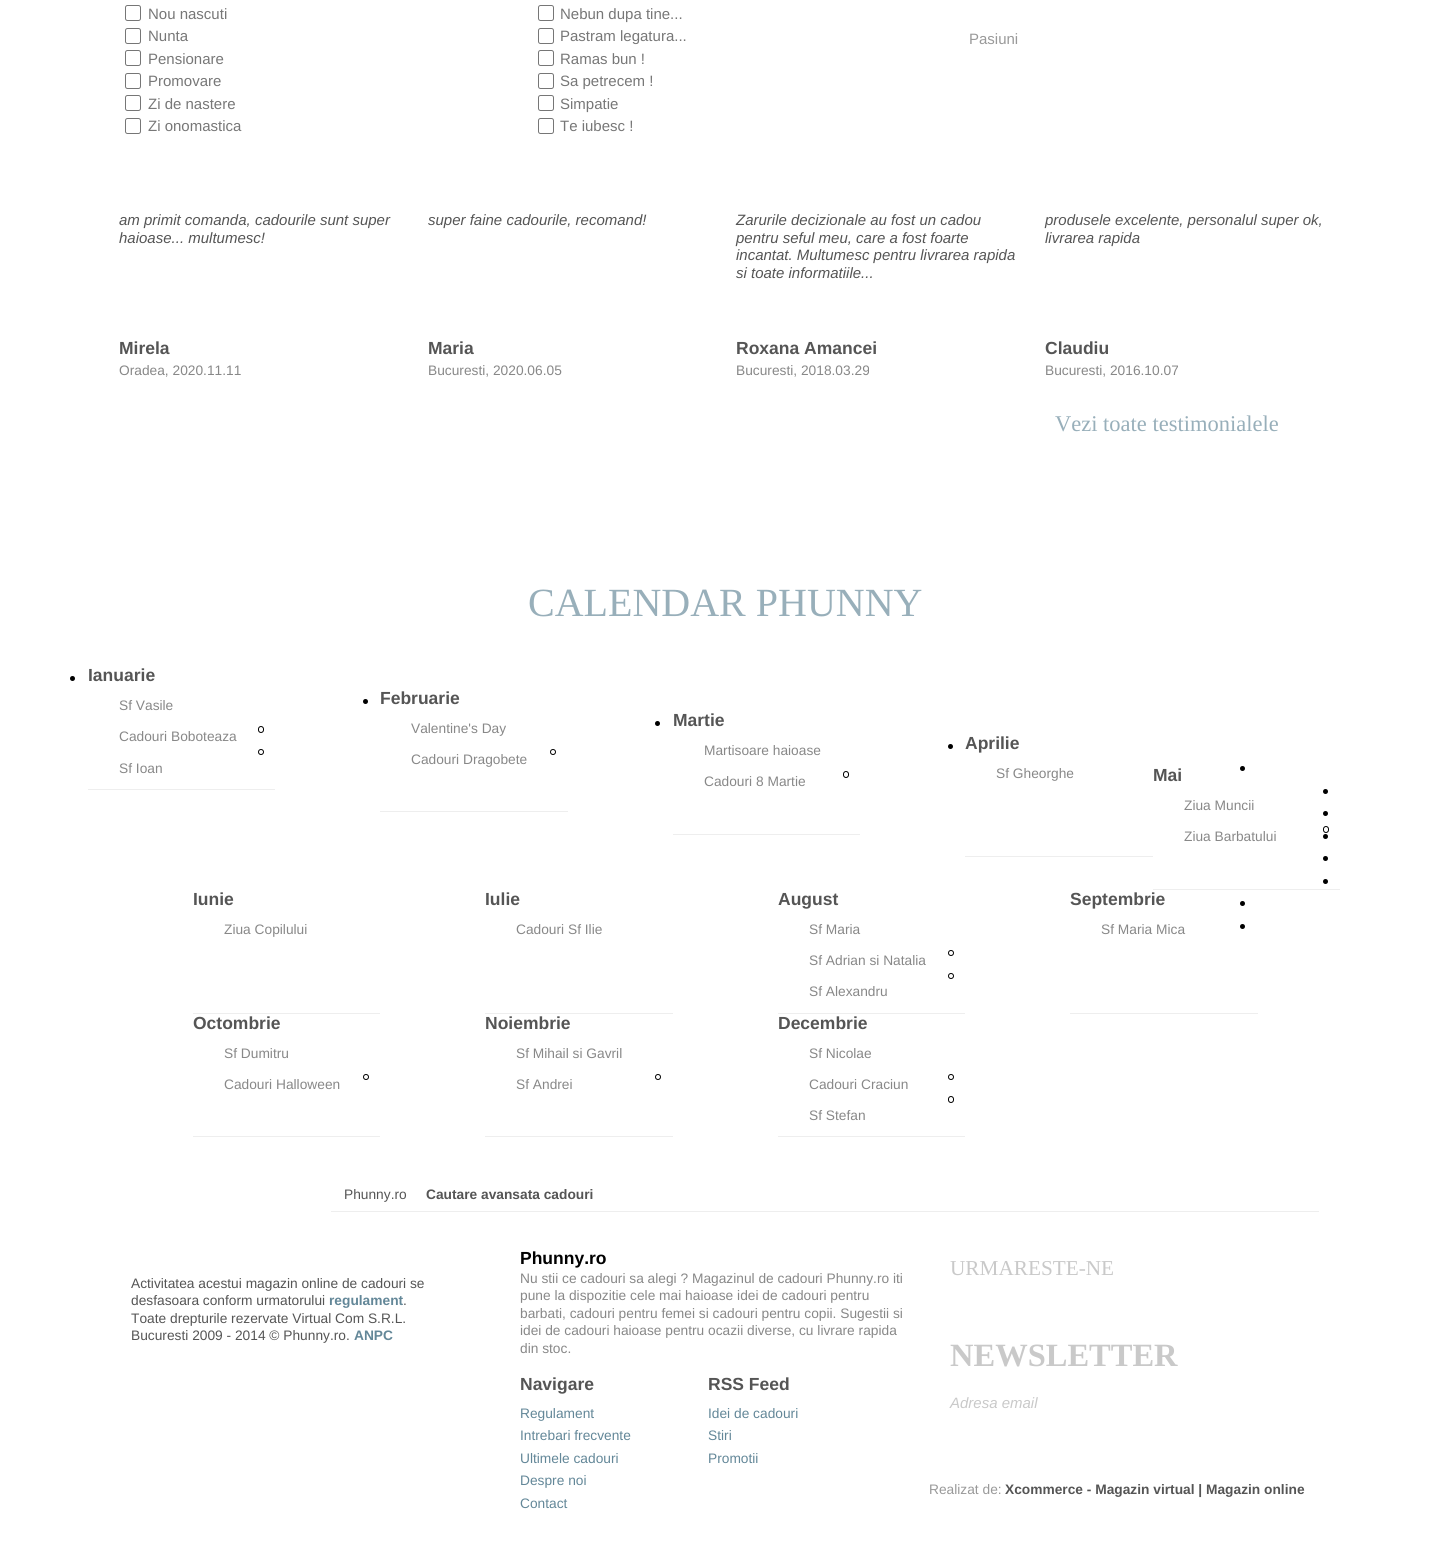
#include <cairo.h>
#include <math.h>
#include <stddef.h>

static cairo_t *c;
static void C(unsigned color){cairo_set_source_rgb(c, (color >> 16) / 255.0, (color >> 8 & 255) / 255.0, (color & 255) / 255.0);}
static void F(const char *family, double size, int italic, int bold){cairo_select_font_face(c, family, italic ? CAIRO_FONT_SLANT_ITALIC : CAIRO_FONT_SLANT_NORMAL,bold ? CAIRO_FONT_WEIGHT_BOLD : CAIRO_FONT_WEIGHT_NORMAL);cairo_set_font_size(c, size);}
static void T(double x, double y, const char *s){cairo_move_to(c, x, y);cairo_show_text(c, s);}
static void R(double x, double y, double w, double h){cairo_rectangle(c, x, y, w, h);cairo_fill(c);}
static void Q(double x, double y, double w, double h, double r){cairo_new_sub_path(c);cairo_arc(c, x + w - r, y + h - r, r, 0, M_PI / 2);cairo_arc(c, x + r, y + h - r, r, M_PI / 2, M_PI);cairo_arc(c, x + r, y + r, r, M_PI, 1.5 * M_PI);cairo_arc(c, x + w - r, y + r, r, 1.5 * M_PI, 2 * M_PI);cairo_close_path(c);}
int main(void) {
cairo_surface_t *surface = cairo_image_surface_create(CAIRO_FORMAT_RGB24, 1450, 1551);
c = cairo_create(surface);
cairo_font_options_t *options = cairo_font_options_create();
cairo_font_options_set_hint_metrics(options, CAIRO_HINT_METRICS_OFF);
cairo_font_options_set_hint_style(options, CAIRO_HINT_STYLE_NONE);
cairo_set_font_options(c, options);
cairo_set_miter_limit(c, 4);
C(0xffffff);
cairo_paint(c);
Q(125.5,5.5,15,15,2);
C(0x767676);
cairo_set_line_width(c,1);
cairo_stroke(c);
F("Liberation Sans",15,0,0);
C(0x777777);
T(148,19,"Nou nascuti");
Q(125.5,28.5,15,15,2);
C(0x767676);
cairo_stroke(c);
C(0x777777);
T(148,41,"Nunta");
Q(125.5,50.5,15,15,2);
C(0x767676);
cairo_stroke(c);
C(0x777777);
T(148,64,"Pensionare");
Q(125.5,73.5,15,15,2);
C(0x767676);
cairo_stroke(c);
C(0x777777);
T(148,86,"Promovare");
Q(125.5,95.5,15,15,2);
C(0x767676);
cairo_stroke(c);
C(0x777777);
T(148,109,"Zi de nastere");
Q(125.5,118.5,15,15,2);
C(0x767676);
cairo_stroke(c);
C(0x777777);
T(148,131,"Zi onomastica");
Q(538.5,5.5,15,15,2);
C(0x767676);
cairo_stroke(c);
C(0x777777);
T(560,19,"Nebun dupa tine...");
Q(538.5,28.5,15,15,2);
C(0x767676);
cairo_stroke(c);
C(0x777777);
T(560,41,"Pastram legatura...");
Q(538.5,50.5,15,15,2);
C(0x767676);
cairo_stroke(c);
C(0x777777);
T(560,64,"Ramas bun !");
Q(538.5,73.5,15,15,2);
C(0x767676);
cairo_stroke(c);
C(0x777777);
T(560,86,"Sa petrecem !");
Q(538.5,95.5,15,15,2);
C(0x767676);
cairo_stroke(c);
C(0x777777);
T(560,109,"Simpatie");
Q(538.5,118.5,15,15,2);
C(0x767676);
cairo_stroke(c);
C(0x777777);
T(560,131,"Te iubesc !");
C(0x999999);
T(969,44,"Pasiuni");
F("Liberation Sans",15,1,0);
C(0x555555);
T(119,225,"am primit comanda, cadourile sunt super");
T(119,243,"haioase... multumesc!");
F("Liberation Sans",17.5,0,1);
T(119,354,"Mirela");
F("Liberation Sans",13.75,0,0);
C(0x888888);
T(119,375,"Oradea, 2020.11.11");
F("Liberation Sans",15,1,0);
C(0x555555);
T(428,225,"super faine cadourile, recomand!");
F("Liberation Sans",17.5,0,1);
T(428,354,"Maria");
F("Liberation Sans",13.75,0,0);
C(0x888888);
T(428,375,"Bucuresti, 2020.06.05");
F("Liberation Sans",15,1,0);
C(0x555555);
T(736,225,"Zarurile decizionale au fost un cadou");
T(736,243,"pentru seful meu, care a fost foarte");
T(736,260,"incantat. Multumesc pentru livrarea rapida");
T(736,278,"si toate informatiile...");
F("Liberation Sans",17.5,0,1);
T(736,354,"Roxana Amancei");
F("Liberation Sans",13.75,0,0);
C(0x888888);
T(736,375,"Bucuresti, 2018.03.29");
F("Liberation Sans",15,1,0);
C(0x555555);
T(1045,225,"produsele excelente, personalul super ok,");
T(1045,243,"livrarea rapida");
F("Liberation Sans",17.5,0,1);
T(1045,354,"Claudiu");
F("Liberation Sans",13.75,0,0);
C(0x888888);
T(1045,375,"Bucuresti, 2016.10.07");
F("Liberation Serif",22.5,0,0);
C(0x98afba);
T(1055,431,"Vezi toate testimonialele");
F("Liberation Serif",40,0,0);
T(528,616,"CALENDAR PHUNNY");
C(0x000000);
cairo_new_path(c);
cairo_arc(c,72.5,678.5,2.5,0,2 * M_PI);
cairo_fill(c);
C(0xeeeeee);
R(88,789,187,1);
F("Liberation Sans",17.5,0,1);
C(0x555555);
T(88,681,"Ianuarie");
F("Liberation Sans",13.75,0,0);
C(0x888888);
T(119,710,"Sf Vasile");
Q(258.5,726.5,5,6,2.5);
C(0x000000);
cairo_stroke(c);
C(0x888888);
T(119,741,"Cadouri Boboteaza");
cairo_new_path(c);
cairo_arc(c,261,752,2.5,0,2 * M_PI);
C(0x000000);
cairo_stroke(c);
C(0x888888);
T(119,773,"Sf Ioan");
C(0x000000);
cairo_new_path(c);
cairo_arc(c,365.5,701.5,2.5,0,2 * M_PI);
cairo_fill(c);
C(0xeeeeee);
R(380,811,188,1);
F("Liberation Sans",17.5,0,1);
C(0x555555);
T(380,704,"Februarie");
F("Liberation Sans",13.75,0,0);
C(0x888888);
T(411,733,"Valentine's Day");
cairo_new_path(c);
cairo_arc(c,553,752,2.5,0,2 * M_PI);
C(0x000000);
cairo_stroke(c);
C(0x888888);
T(411,764,"Cadouri Dragobete");
C(0x000000);
cairo_new_path(c);
cairo_arc(c,657.5,723.5,2.5,0,2 * M_PI);
cairo_fill(c);
C(0xeeeeee);
R(673,834,187,1);
F("Liberation Sans",17.5,0,1);
C(0x555555);
T(673,726,"Martie");
F("Liberation Sans",13.75,0,0);
C(0x888888);
T(704,755,"Martisoare haioase");
Q(843.5,771.5,5,6,2.5);
C(0x000000);
cairo_stroke(c);
C(0x888888);
T(704,786,"Cadouri 8 Martie");
C(0x000000);
cairo_new_path(c);
cairo_arc(c,950.5,746.5,2.5,0,2 * M_PI);
cairo_fill(c);
C(0xeeeeee);
R(965,856,188,1);
F("Liberation Sans",17.5,0,1);
C(0x555555);
T(965,749,"Aprilie");
F("Liberation Sans",13.75,0,0);
C(0x888888);
T(996,778,"Sf Gheorghe");
C(0x000000);
cairo_new_path(c);
cairo_arc(c,1242.5,768.5,2.5,0,2 * M_PI);
cairo_fill(c);
C(0xeeeeee);
R(1153,889,187,1);
F("Liberation Sans",17.5,0,1);
C(0x555555);
T(1153,781,"Mai");
F("Liberation Sans",13.75,0,0);
C(0x888888);
T(1184,810,"Ziua Muncii");
Q(1323.5,826.5,5,6,2.5);
C(0x000000);
cairo_stroke(c);
C(0x888888);
T(1184,841,"Ziua Barbatului");
C(0x000000);
cairo_new_path(c);
cairo_arc(c,1325.5,791.5,2.5,0,2 * M_PI);
cairo_fill(c);
C(0xeeeeee);
R(193,1013,187,1);
F("Liberation Sans",17.5,0,1);
C(0x555555);
T(193,905,"Iunie");
F("Liberation Sans",13.75,0,0);
C(0x888888);
T(224,934,"Ziua Copilului");
C(0x000000);
cairo_new_path(c);
cairo_arc(c,1325.5,813.5,2.5,0,2 * M_PI);
cairo_fill(c);
C(0xeeeeee);
R(485,1013,188,1);
F("Liberation Sans",17.5,0,1);
C(0x555555);
T(485,905,"Iulie");
F("Liberation Sans",13.75,0,0);
C(0x888888);
T(516,934,"Cadouri Sf Ilie");
C(0x000000);
cairo_new_path(c);
cairo_arc(c,1325.5,836.5,2.5,0,2 * M_PI);
cairo_fill(c);
C(0xeeeeee);
R(778,1013,187,1);
F("Liberation Sans",17.5,0,1);
C(0x555555);
T(778,905,"August");
F("Liberation Sans",13.75,0,0);
C(0x888888);
T(809,934,"Sf Maria");
cairo_new_path(c);
cairo_arc(c,951,953,2.5,0,2 * M_PI);
C(0x000000);
cairo_stroke(c);
C(0x888888);
T(809,965,"Sf Adrian si Natalia");
cairo_new_path(c);
cairo_arc(c,951,976,2.5,0,2 * M_PI);
C(0x000000);
cairo_stroke(c);
C(0x888888);
T(809,996,"Sf Alexandru");
C(0x000000);
cairo_new_path(c);
cairo_arc(c,1325.5,858.5,2.5,0,2 * M_PI);
cairo_fill(c);
C(0xeeeeee);
R(1070,1013,188,1);
F("Liberation Sans",17.5,0,1);
C(0x555555);
T(1070,905,"Septembrie");
F("Liberation Sans",13.75,0,0);
C(0x888888);
T(1101,934,"Sf Maria Mica");
C(0x000000);
cairo_new_path(c);
cairo_arc(c,1325.5,881.5,2.5,0,2 * M_PI);
cairo_fill(c);
C(0xeeeeee);
R(193,1136,187,1);
F("Liberation Sans",17.5,0,1);
C(0x555555);
T(193,1029,"Octombrie");
F("Liberation Sans",13.75,0,0);
C(0x888888);
T(224,1058,"Sf Dumitru");
cairo_new_path(c);
cairo_arc(c,366,1077,2.5,0,2 * M_PI);
C(0x000000);
cairo_stroke(c);
C(0x888888);
T(224,1089,"Cadouri Halloween");
C(0x000000);
cairo_new_path(c);
cairo_arc(c,1242.5,903.5,2.5,0,2 * M_PI);
cairo_fill(c);
C(0xeeeeee);
R(485,1136,188,1);
F("Liberation Sans",17.5,0,1);
C(0x555555);
T(485,1029,"Noiembrie");
F("Liberation Sans",13.75,0,0);
C(0x888888);
T(516,1058,"Sf Mihail si Gavril");
cairo_new_path(c);
cairo_arc(c,658,1077,2.5,0,2 * M_PI);
C(0x000000);
cairo_stroke(c);
C(0x888888);
T(516,1089,"Sf Andrei");
C(0x000000);
cairo_new_path(c);
cairo_arc(c,1242.5,926.5,2.5,0,2 * M_PI);
cairo_fill(c);
C(0xeeeeee);
R(778,1136,187,1);
F("Liberation Sans",17.5,0,1);
C(0x555555);
T(778,1029,"Decembrie");
F("Liberation Sans",13.75,0,0);
C(0x888888);
T(809,1058,"Sf Nicolae");
cairo_new_path(c);
cairo_arc(c,951,1077,2.5,0,2 * M_PI);
C(0x000000);
cairo_stroke(c);
C(0x888888);
T(809,1089,"Cadouri Craciun");
Q(948.5,1096.5,5,6,2.5);
C(0x000000);
cairo_stroke(c);
C(0x888888);
T(809,1120,"Sf Stefan");
C(0xeeeeee);
R(331,1211,988,1);
C(0x555555);
T(344,1199,"Phunny.ro");
F("Liberation Sans",13.75,0,1);
T(426,1199,"Cautare avansata cadouri");
F("Liberation Sans",13.75,0,0);
T(131,1288,"Activitatea acestui magazin online de cadouri se");
T(131,1305,"desfasoara conform urmatorului");
F("Liberation Sans",13.75,0,1);
C(0x638798);
T(329,1305,"regulament");
F("Liberation Sans",13.75,0,0);
C(0x555555);
T(403,1305,".");
T(131,1323,"Toate drepturile rezervate Virtual Com S.R.L.");
T(131,1340,"Bucuresti 2009 - 2014 © Phunny.ro.");
F("Liberation Sans",13.75,0,1);
C(0x638798);
T(354,1340,"ANPC");
F("Liberation Sans",17.5,0,1);
C(0x000000);
T(520,1264,"Phunny.ro");
F("Liberation Sans",13.75,0,0);
C(0x888888);
T(520,1283,"Nu stii ce cadouri sa alegi ? Magazinul de cadouri Phunny.ro iti");
T(520,1300,"pune la dispozitie cele mai haioase idei de cadouri pentru");
T(520,1318,"barbati, cadouri pentru femei si cadouri pentru copii. Sugestii si");
T(520,1335,"idei de cadouri haioase pentru ocazii diverse, cu livrare rapida");
T(520,1353,"din stoc.");
F("Liberation Sans",17.5,0,1);
C(0x555555);
T(520,1390,"Navigare");
F("Liberation Sans",13.75,0,0);
C(0x638798);
T(520,1418,"Regulament");
T(520,1440,"Intrebari frecvente");
T(520,1463,"Ultimele cadouri");
T(520,1485,"Despre noi");
T(520,1508,"Contact");
F("Liberation Sans",17.5,0,1);
C(0x555555);
T(708,1390,"RSS Feed");
F("Liberation Sans",13.75,0,0);
C(0x638798);
T(708,1418,"Idei de cadouri");
T(708,1440,"Stiri");
T(708,1463,"Promotii");
F("Liberation Serif",21.25,0,0);
C(0xc9c9c9);
T(950,1275,"URMARESTE-NE");
F("Liberation Serif",32.5,0,1);
T(950,1366,"NEWSLETTER");
F("Liberation Sans",15,1,0);
T(950,1408,"Adresa email");
F("Liberation Sans",13.75,0,0);
C(0x999999);
T(929,1494,"Realizat de:");
F("Liberation Sans",13.75,0,1);
C(0x555555);
T(1005,1494,"Xcommerce - Magazin virtual | Magazin online");
cairo_surface_write_to_png(surface, "o.png");
cairo_font_options_destroy(options);
cairo_destroy(c);
cairo_surface_destroy(surface);
return 0;
}
